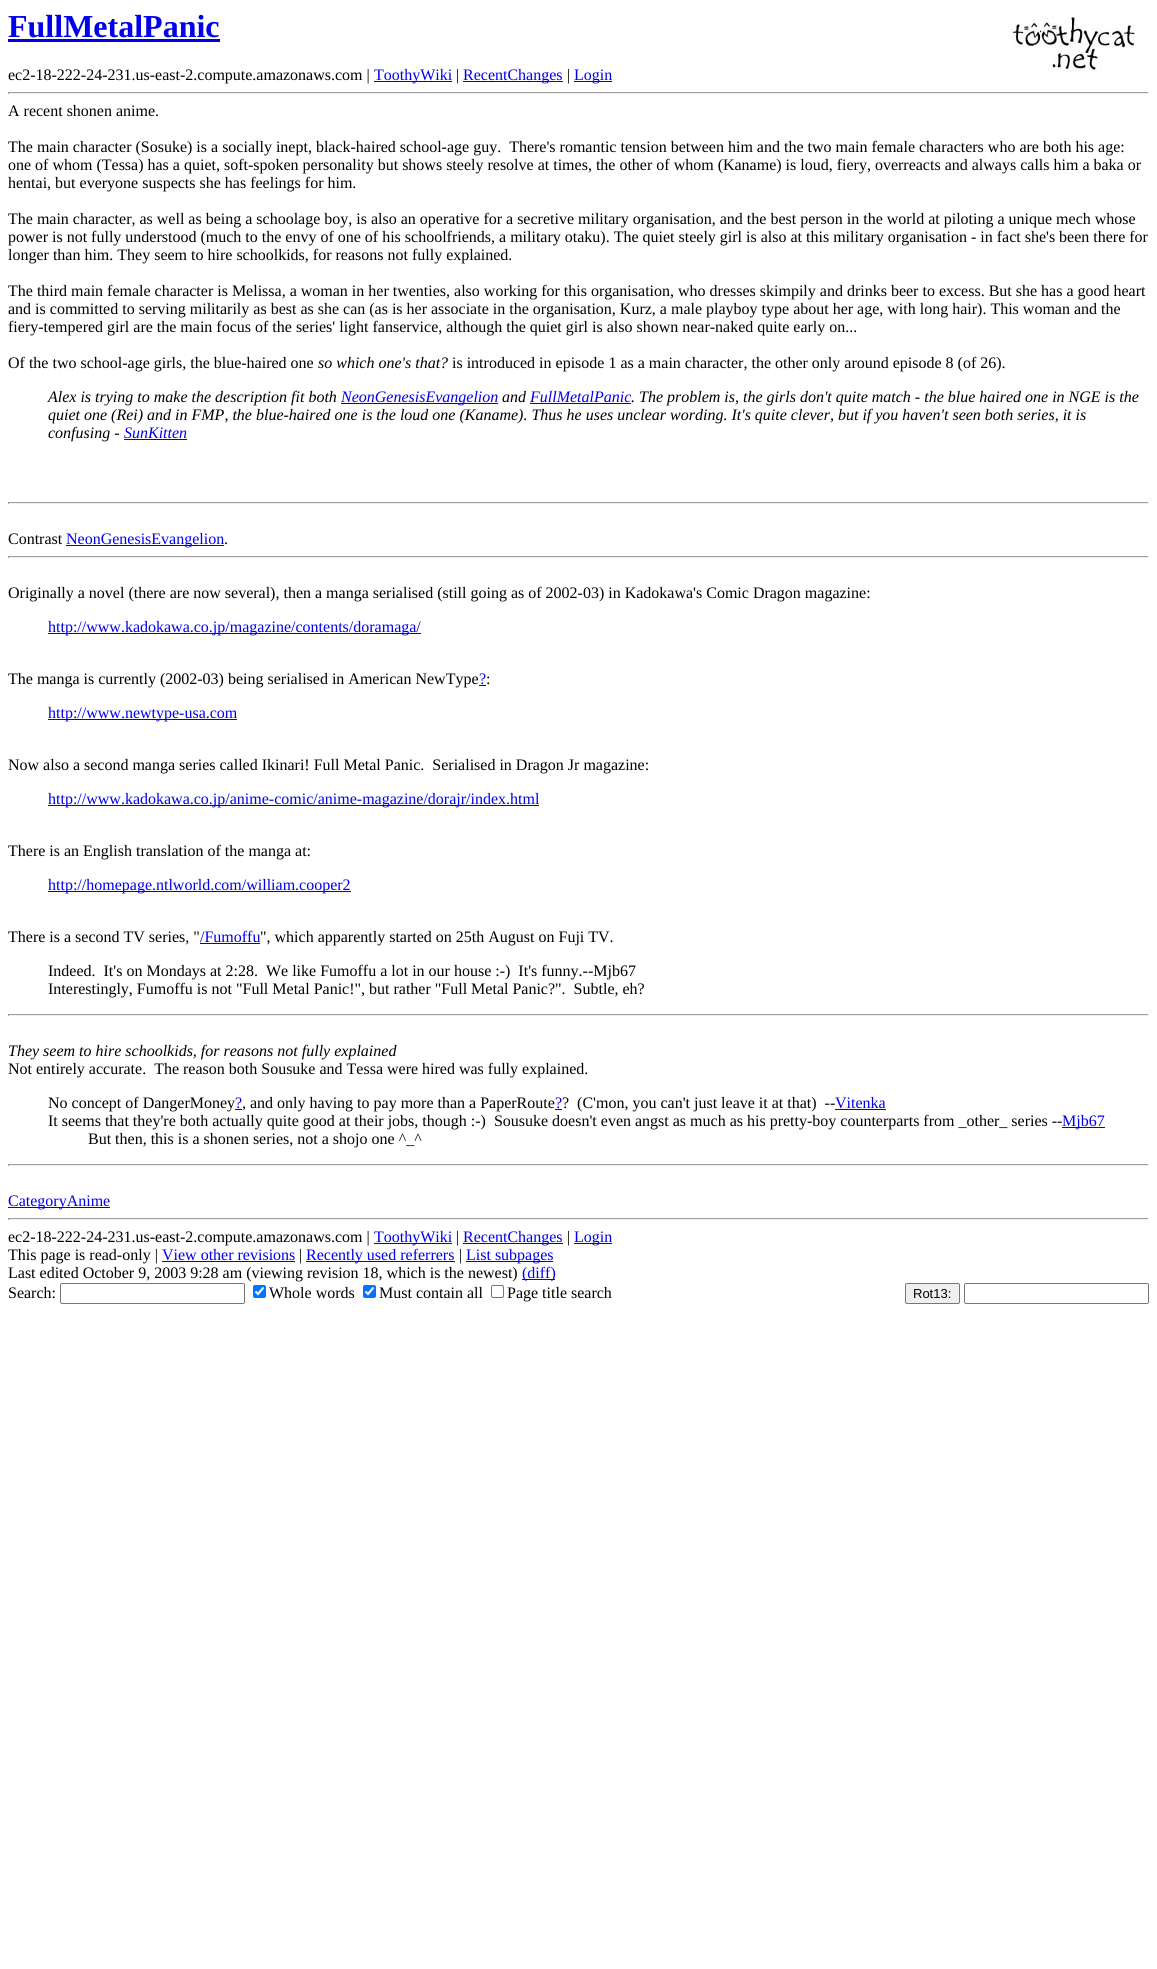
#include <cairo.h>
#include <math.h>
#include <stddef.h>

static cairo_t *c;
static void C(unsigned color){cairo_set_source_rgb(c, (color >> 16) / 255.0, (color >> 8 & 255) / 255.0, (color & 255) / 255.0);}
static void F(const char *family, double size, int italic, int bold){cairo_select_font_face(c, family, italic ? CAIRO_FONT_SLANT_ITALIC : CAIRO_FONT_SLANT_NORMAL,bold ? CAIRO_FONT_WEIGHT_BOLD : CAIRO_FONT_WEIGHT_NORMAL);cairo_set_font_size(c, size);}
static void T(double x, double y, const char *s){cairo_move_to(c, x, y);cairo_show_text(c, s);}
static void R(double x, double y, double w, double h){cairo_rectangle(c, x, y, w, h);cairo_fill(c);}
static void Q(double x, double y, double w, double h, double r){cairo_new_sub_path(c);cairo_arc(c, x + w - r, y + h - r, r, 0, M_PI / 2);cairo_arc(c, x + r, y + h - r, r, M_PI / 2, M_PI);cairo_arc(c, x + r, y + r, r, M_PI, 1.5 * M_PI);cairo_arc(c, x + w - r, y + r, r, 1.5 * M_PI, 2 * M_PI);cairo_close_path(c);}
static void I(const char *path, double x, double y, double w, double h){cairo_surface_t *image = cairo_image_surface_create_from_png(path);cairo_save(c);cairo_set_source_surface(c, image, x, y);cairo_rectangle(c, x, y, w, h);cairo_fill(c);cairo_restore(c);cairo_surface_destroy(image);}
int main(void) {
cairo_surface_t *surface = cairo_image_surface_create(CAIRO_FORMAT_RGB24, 1157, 1969);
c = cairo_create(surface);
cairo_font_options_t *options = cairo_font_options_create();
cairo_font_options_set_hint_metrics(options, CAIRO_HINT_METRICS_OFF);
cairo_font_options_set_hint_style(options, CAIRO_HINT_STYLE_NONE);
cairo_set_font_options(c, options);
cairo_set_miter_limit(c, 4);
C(0xffffff);
cairo_paint(c);
F("Liberation Serif",32,0,1);
C(0x0000ee);
T(8,37,"FullMetalPanic");
R(8,39,212,3);
I("1.png",1007,16,128,56);
F("Liberation Serif",16,0,0);
C(0x000000);
T(8,80,"ec2-18-222-24-231.us-east-2.compute.amazonaws.com |");
C(0x0000ee);
R(374,81,78,1);
T(374,80,"ToothyWiki");
C(0x000000);
T(456,80,"|");
C(0x0000ee);
R(463,81,100,1);
T(463,80,"RecentChanges");
C(0x000000);
T(567,80,"|");
C(0x0000ee);
R(574,81,38,1);
T(574,80,"Login");
C(0x9f9f9f);
R(8,92,1141,1);
C(0xeeeeee);
R(1148,92,1,2);
R(8,93,1141,1);
C(0x9f9f9f);
R(8,92,1,2);
C(0x000000);
T(8,116,"A recent shonen anime.");
T(8,152,"The main character (Sosuke) is a socially inept, black-haired school-age guy.  There's romantic tension between him and the two main female characters who are both his age:");
T(8,170,"one of whom (Tessa) has a quiet, soft-spoken personality but shows steely resolve at times, the other of whom (Kaname) is loud, fiery, overreacts and always calls him a baka or");
T(8,188,"hentai, but everyone suspects she has feelings for him.");
T(8,224,"The main character, as well as being a schoolage boy, is also an operative for a secretive military organisation, and the best person in the world at piloting a unique mech whose");
T(8,242,"power is not fully understood (much to the envy of one of his schoolfriends, a military otaku). The quiet steely girl is also at this military organisation - in fact she's been there for");
T(8,260,"longer than him. They seem to hire schoolkids, for reasons not fully explained.");
T(8,296,"The third main female character is Melissa, a woman in her twenties, also working for this organisation, who dresses skimpily and drinks beer to excess. But she has a good heart");
T(8,314,"and is committed to serving militarily as best as she can (as is her associate in the organisation, Kurz, a male playboy type about her age, with long hair). This woman and the");
T(8,332,"fiery-tempered girl are the main focus of the series' light fanservice, although the quiet girl is also shown near-naked quite early on...");
T(8,368,"Of the two school-age girls, the blue-haired one");
F("Liberation Serif",16,1,0);
T(318,368,"so which one's that?");
F("Liberation Serif",16,0,0);
T(452,368,"is introduced in episode 1 as a main character, the other only around episode 8 (of 26).");
F("Liberation Serif",16,1,0);
T(48,402,"Alex is trying to make the description fit both");
C(0x0000ee);
R(341,403,157,1);
T(341,402,"NeonGenesisEvangelion");
C(0x000000);
T(502,402,"and");
C(0x0000ee);
T(530,402,"FullMetalPanic");
C(0x000000);
T(631,402,". The problem is, the girls don't quite match - the blue haired one in NGE is the");
C(0x0000ee);
R(530,403,101,1);
C(0x000000);
T(48,420,"quiet one (Rei) and in FMP, the blue-haired one is the loud one (Kaname). Thus he uses unclear wording. It's quite clever, but if you haven't seen both series, it is");
T(48,438,"confusing -");
C(0x0000ee);
T(124,438,"SunKitten");
R(124,439,63,1);
C(0x9f9f9f);
R(8,502,1141,1);
C(0xeeeeee);
R(1148,502,1,2);
R(8,503,1141,1);
C(0x9f9f9f);
R(8,502,1,2);
F("Liberation Serif",16,0,0);
C(0x000000);
T(8,544,"Contrast");
C(0x0000ee);
R(66,545,158,1);
T(66,544,"NeonGenesisEvangelion");
C(0x000000);
T(224,544,".");
C(0x9f9f9f);
R(8,556,1141,1);
C(0xeeeeee);
R(1148,556,1,2);
R(8,557,1141,1);
C(0x9f9f9f);
R(8,556,1,2);
C(0x000000);
T(8,598,"Originally a novel (there are now several), then a manga serialised (still going as of 2002-03) in Kadokawa's Comic Dragon magazine:");
C(0x0000ee);
R(48,633,373,1);
T(48,632,"http://www.kadokawa.co.jp/magazine/contents/doramaga/");
C(0x000000);
T(8,684,"The manga is currently (2002-03) being serialised in American NewType");
C(0x0000ee);
T(479,684,"?");
R(479,685,7,1);
C(0x000000);
T(486,684,":");
C(0x0000ee);
R(48,719,189,1);
T(48,718,"http://www.newtype-usa.com");
C(0x000000);
T(8,770,"Now also a second manga series called Ikinari! Full Metal Panic.  Serialised in Dragon Jr magazine:");
C(0x0000ee);
R(48,805,491,1);
T(48,804,"http://www.kadokawa.co.jp/anime-comic/anime-magazine/dorajr/index.html");
C(0x000000);
T(8,856,"There is an English translation of the manga at:");
C(0x0000ee);
R(48,891,303,1);
T(48,890,"http://homepage.ntlworld.com/william.cooper2");
C(0x000000);
T(8,942,"There is a second TV series, \"");
C(0x0000ee);
T(200,942,"/Fumoffu");
R(200,943,60,1);
C(0x000000);
T(260,942,"\", which apparently started on 25th August on Fuji TV.");
T(48,976,"Indeed.  It's on Mondays at 2:28.  We like Fumoffu a lot in our house :-)  It's funny.--Mjb67");
T(48,994,"Interestingly, Fumoffu is not \"Full Metal Panic!\", but rather \"Full Metal Panic?\".  Subtle, eh?");
C(0x9f9f9f);
R(8,1014,1141,1);
C(0xeeeeee);
R(1148,1014,1,2);
R(8,1015,1141,1);
C(0x9f9f9f);
R(8,1014,1,2);
F("Liberation Serif",16,1,0);
C(0x000000);
T(8,1056,"They seem to hire schoolkids, for reasons not fully explained");
F("Liberation Serif",16,0,0);
T(8,1074,"Not entirely accurate.  The reason both Sousuke and Tessa were hired was fully explained.");
T(48,1108,"No concept of DangerMoney");
C(0x0000ee);
T(235,1108,"?");
R(235,1109,7,1);
C(0x000000);
T(242,1108,", and only having to pay more than a PaperRoute");
C(0x0000ee);
T(555,1108,"?");
R(555,1109,7,1);
C(0x000000);
T(562,1108,"?  (C'mon, you can't just leave it at that)  --");
C(0x0000ee);
T(835,1108,"Vitenka");
R(835,1109,51,1);
C(0x000000);
T(48,1126,"It seems that they're both actually quite good at their jobs, though :-)  Sousuke doesn't even angst as much as his pretty-boy counterparts from _other_ series --");
C(0x0000ee);
R(1062,1127,43,1);
T(1062,1126,"Mjb67");
C(0x000000);
T(88,1144,"But then, this is a shonen series, not a shojo one ^_^");
C(0x9f9f9f);
R(8,1164,1141,1);
C(0xeeeeee);
R(1148,1164,1,2);
R(8,1165,1141,1);
C(0x9f9f9f);
R(8,1164,1,2);
C(0x0000ee);
R(8,1207,102,1);
T(8,1206,"CategoryAnime");
C(0x9f9f9f);
R(8,1218,1141,1);
C(0xeeeeee);
R(1148,1218,1,2);
R(8,1219,1141,1);
C(0x9f9f9f);
R(8,1218,1,2);
C(0x000000);
T(8,1242,"ec2-18-222-24-231.us-east-2.compute.amazonaws.com |");
C(0x0000ee);
R(374,1243,78,1);
T(374,1242,"ToothyWiki");
C(0x000000);
T(456,1242,"|");
C(0x0000ee);
R(463,1243,100,1);
T(463,1242,"RecentChanges");
C(0x000000);
T(567,1242,"|");
C(0x0000ee);
R(574,1243,38,1);
T(574,1242,"Login");
C(0x000000);
T(8,1260,"This page is read-only |");
C(0x0000ee);
T(162,1260,"View other revisions");
R(162,1261,133,1);
C(0x000000);
T(299,1260,"|");
C(0x0000ee);
R(306,1261,149,1);
T(306,1260,"Recently used referrers");
C(0x000000);
T(459,1260,"|");
C(0x0000ee);
R(466,1261,87,1);
T(466,1260,"List subpages");
C(0x000000);
T(8,1278,"Last edited October 9, 2003 9:28 am (viewing revision 18, which is the newest)");
C(0x0000ee);
R(522,1279,33,1);
T(522,1278,"(diff)");
C(0x000000);
T(8,1298,"Search:");
Q(60.5,1283.5,184,20,1.5);
C(0x767676);
cairo_set_line_width(c,1);
cairo_stroke(c);
C(0x0075ff);
Q(253,1285,13,13,2);
cairo_fill(c);
cairo_new_path(c);
cairo_move_to(c,255.5,1291.5);
cairo_line_to(c,258,1294);
cairo_line_to(c,263.5,1287.5);
C(0xffffff);
cairo_set_line_width(c,2.1);
cairo_stroke(c);
C(0x000000);
T(269,1298,"Whole words");
C(0x0075ff);
Q(363,1285,13,13,2);
cairo_fill(c);
cairo_new_path(c);
cairo_move_to(c,365.5,1291.5);
cairo_line_to(c,368,1294);
cairo_line_to(c,373.5,1287.5);
C(0xffffff);
cairo_stroke(c);
C(0x000000);
T(379,1298,"Must contain all");
Q(491.5,1285.5,12,12,1.5);
C(0x767676);
cairo_set_line_width(c,1);
cairo_stroke(c);
C(0x000000);
T(507,1298,"Page title search");
C(0xefefef);
Q(905.5,1283.5,54,20,1.5);
cairo_fill_preserve(c);
C(0x767676);
cairo_stroke(c);
F("Liberation Sans",13,0,0);
C(0x000000);
T(913,1298,"Rot13:");
Q(964.5,1283.5,184,20,1.5);
C(0x767676);
cairo_stroke(c);
cairo_surface_write_to_png(surface, "o.png");
cairo_font_options_destroy(options);
cairo_destroy(c);
cairo_surface_destroy(surface);
return 0;
}
